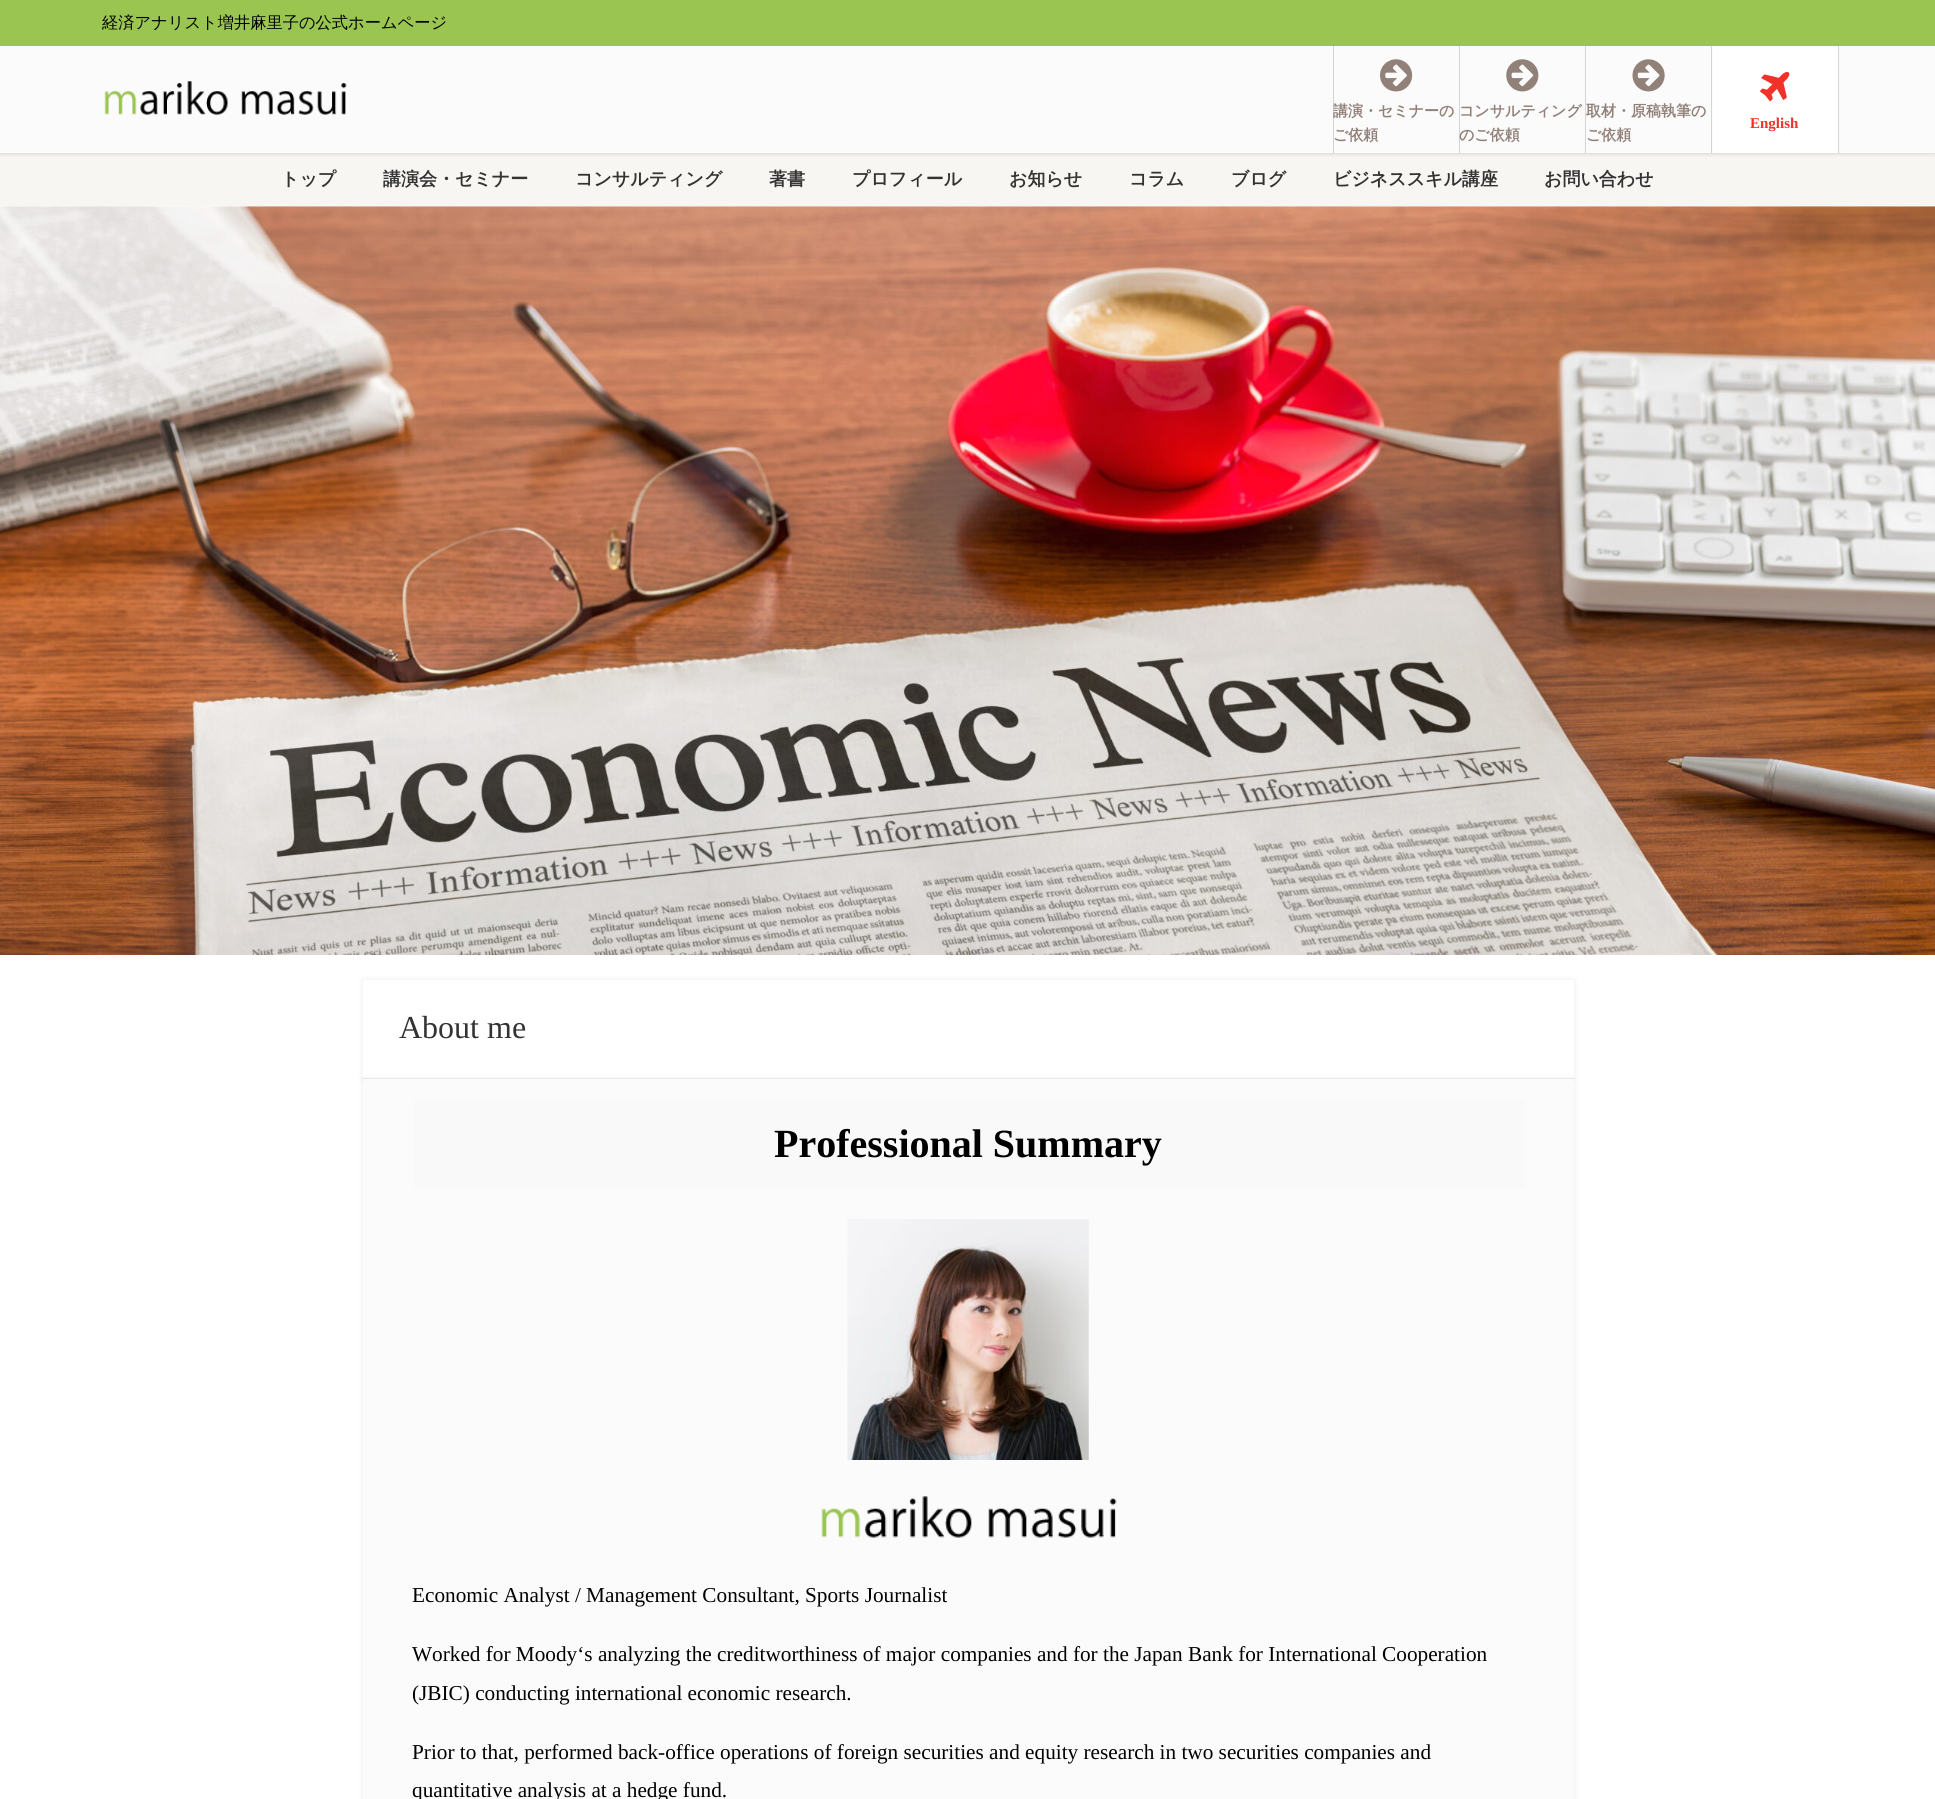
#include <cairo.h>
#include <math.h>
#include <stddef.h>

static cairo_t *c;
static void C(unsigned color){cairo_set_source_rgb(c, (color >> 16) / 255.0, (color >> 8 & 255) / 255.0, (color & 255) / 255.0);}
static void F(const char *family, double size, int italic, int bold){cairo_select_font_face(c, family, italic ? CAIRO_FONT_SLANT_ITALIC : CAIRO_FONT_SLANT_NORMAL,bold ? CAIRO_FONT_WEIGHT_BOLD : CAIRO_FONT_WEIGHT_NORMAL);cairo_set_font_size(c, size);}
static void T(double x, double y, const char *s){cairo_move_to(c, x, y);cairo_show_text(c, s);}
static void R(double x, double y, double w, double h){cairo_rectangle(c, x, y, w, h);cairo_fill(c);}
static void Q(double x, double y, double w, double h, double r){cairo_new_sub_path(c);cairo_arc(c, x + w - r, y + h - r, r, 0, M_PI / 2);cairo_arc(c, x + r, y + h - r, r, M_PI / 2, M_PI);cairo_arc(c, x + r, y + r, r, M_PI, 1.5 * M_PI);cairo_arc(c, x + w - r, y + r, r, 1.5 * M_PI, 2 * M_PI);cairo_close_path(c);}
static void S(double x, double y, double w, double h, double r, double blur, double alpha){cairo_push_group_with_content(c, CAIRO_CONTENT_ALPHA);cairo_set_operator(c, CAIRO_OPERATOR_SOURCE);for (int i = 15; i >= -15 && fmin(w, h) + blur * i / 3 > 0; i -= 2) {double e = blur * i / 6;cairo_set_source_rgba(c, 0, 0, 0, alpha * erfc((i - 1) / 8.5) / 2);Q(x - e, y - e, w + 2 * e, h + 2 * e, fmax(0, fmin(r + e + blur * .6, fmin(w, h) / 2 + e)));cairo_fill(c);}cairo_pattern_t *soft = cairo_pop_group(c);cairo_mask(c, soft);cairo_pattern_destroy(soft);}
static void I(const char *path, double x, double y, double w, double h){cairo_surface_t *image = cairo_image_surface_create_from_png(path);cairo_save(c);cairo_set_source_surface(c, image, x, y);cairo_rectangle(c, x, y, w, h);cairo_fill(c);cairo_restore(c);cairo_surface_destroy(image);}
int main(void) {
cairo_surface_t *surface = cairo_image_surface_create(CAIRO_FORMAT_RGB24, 1935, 1799);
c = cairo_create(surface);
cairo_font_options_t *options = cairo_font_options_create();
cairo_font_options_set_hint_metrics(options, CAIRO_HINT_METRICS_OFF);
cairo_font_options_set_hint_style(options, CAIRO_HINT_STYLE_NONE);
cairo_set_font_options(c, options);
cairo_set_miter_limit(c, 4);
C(0xffffff);
cairo_paint(c);
C(0xf7f6f2);
R(0,153,1935,53);
C(0x000000);
S(0,0,1935,153,0,2.5,.2);
C(0xfbfbfc);
R(0,46,1935,107);
C(0x9ac550);
R(0,0,1935,46);
F("WenQuanYi Zen Hei Medium",16.25,0,0);
C(0x000000);
T(102,28,"経済アナリスト増井麻里子の公式ホームページ");
I("1.png",104,81,243,34);
C(0xd4d4d4);
R(1333,46,1,107);
I("2.png",1380,59,33,33);
F("WenQuanYi Zen Hei",15,0,1);
C(0x928178);
T(1333,116,"講演・セミナーの");
T(1333,140,"ご依頼");
C(0xd4d4d4);
R(1459,46,1,107);
I("3.png",1506,59,33,33);
C(0x928178);
T(1459,116,"コンサルティング");
T(1459,140,"のご依頼");
C(0xd4d4d4);
R(1585,46,1,107);
I("4.png",1632,59,33,33);
C(0x928178);
T(1586,116,"取材・原稿執筆の");
T(1586,140,"ご依頼");
C(0xd4d4d4);
R(1838,46,1,107);
R(1711,46,1,107);
C(0xffffff);
R(1713,46,125,107);
I("5.png",1760,71,30,31);
F("Liberation Serif",15,0,1);
C(0xf03228);
T(1750,128,"English");
F("WenQuanYi Zen Hei",18,0,1);
C(0x333333);
T(281,185,"トップ");
T(383,185,"講演会・セミナー");
T(575,185,"コンサルティング");
T(769,185,"著書");
T(852,185,"プロフィール");
T(1009,185,"お知らせ");
T(1129,185,"コラム");
T(1231,185,"ブログ");
T(1333,185,"ビジネススキル講座");
T(1544,185,"お問い合わせ");
I("6.png",0,206,1935,749);
C(0x969696);
S(363,980,1211,99,0,3,.2);
C(0xffffff);
R(363,980,1211,98);
C(0xeeeeee);
R(363,1078,1211,1);
F("Liberation Serif",32,0,0);
C(0x333333);
T(399,1038,"About me");
C(0x969696);
S(363,1079,1211,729,0,3,.2);
C(0xfbfbfc);
R(363,1079,1211,720);
C(0xf9f9f9);
Q(413,1099,1111,90,4);
cairo_fill(c);
F("Liberation Serif",40,0,1);
C(0x000000);
T(774,1157,"Professional Summary");
I("7.png",847,1219,242,241);
I("8.png",821,1496,296,42);
F("Liberation Serif",21.25,0,0);
T(412,1602,"Economic Analyst / Management Consultant, Sports Journalist");
T(412,1661,"Worked for Moody‘s analyzing the creditworthiness of major companies and for the Japan Bank for International Cooperation");
T(412,1700,"(JBIC) conducting international economic research.");
T(412,1759,"Prior to that, performed back-office operations of foreign securities and equity research in two securities companies and");
T(412,1797,"quantitative analysis at a hedge fund.");
cairo_surface_write_to_png(surface, "o.png");
cairo_font_options_destroy(options);
cairo_destroy(c);
cairo_surface_destroy(surface);
return 0;
}
